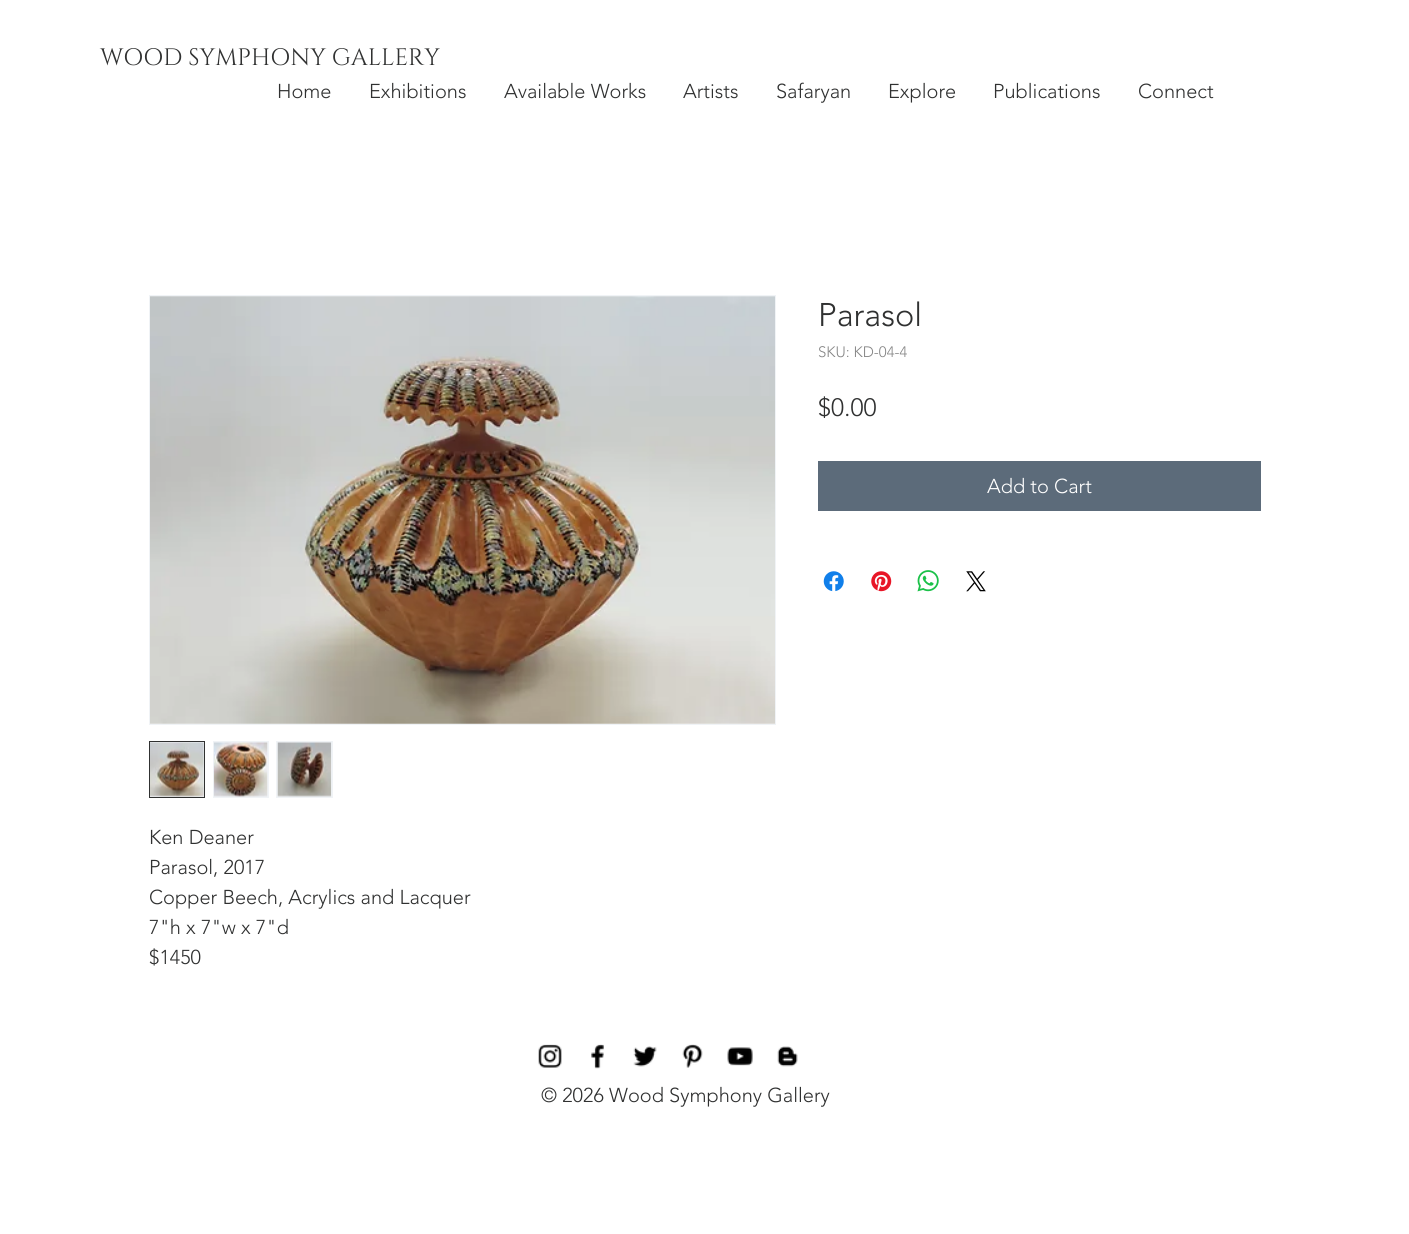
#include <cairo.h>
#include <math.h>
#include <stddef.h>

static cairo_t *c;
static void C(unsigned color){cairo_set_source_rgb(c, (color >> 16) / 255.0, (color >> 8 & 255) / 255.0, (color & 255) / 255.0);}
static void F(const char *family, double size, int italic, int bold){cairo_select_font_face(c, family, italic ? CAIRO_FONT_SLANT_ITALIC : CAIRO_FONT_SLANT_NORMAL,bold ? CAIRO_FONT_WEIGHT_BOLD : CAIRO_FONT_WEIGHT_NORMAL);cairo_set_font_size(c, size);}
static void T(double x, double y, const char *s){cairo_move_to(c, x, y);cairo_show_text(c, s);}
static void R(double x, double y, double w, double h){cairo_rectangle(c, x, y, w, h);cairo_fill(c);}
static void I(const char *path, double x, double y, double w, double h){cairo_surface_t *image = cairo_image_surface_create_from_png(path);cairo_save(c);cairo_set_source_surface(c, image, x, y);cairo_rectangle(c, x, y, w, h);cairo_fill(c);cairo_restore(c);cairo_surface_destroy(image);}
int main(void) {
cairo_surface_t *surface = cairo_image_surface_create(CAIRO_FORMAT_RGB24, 1409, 1234);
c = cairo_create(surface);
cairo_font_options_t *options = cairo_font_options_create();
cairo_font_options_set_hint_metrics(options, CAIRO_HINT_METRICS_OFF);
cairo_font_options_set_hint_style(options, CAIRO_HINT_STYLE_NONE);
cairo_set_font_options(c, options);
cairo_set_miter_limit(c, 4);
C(0xffffff);
cairo_paint(c);
F("Cinzel",23.75,0,0);
C(0x303131);
T(100,65,"WOOD SYMPHONY GALLERY");
F("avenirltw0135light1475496 Light",20,0,0);
T(277,98,"Home");
T(369,98,"Exhibitions");
T(504,98,"Available Works");
T(683,98,"Artists");
T(776,98,"Safaryan");
T(888,98,"Explore");
T(993,98,"Publications");
T(1138,98,"Connect");
F("avenirltw0135light1475496 Light",32.5,0,0);
T(818,326,"Parasol");
F("avenirltw0135light1475496 Light",15,0,0);
C(0x858585);
T(818,357,"SKU: KD-04-4");
F("avenirltw0135light1475496 Light",25,0,0);
C(0x303131);
T(818,416,"$0.00");
C(0x5c6b7a);
R(818,461,443,50);
F("avenirltw0135light1475496 Light",20,0,0);
C(0xffffff);
T(987,493,"Add to Cart");
I("1.png",823,571,21,21);
I("2.png",871,571,21,21);
I("3.png",917,570,22,22);
I("4.png",966,571,20,21);
cairo_rectangle(c,149.5,295.5,626,429);
C(0xf0f3f6);
cairo_set_line_width(c,1);
cairo_stroke(c);
I("5.png",150,296,625,428);
cairo_rectangle(c,149.5,741.5,55,56);
cairo_fill_preserve(c);
C(0x303131);
cairo_stroke(c);
I("6.png",150,742,54,55);
C(0xf0f3f6);
R(213,741,56,57);
I("7.png",213,742,55,55);
R(276,741,57,57);
I("8.png",277,742,55,55);
C(0x303131);
T(149,844,"Ken Deaner");
T(149,874,"Parasol, 2017");
T(149,904,"Copper Beech, Acrylics and Lacquer");
T(149,934,"7\"h x 7\"w x 7\"d");
T(149,964,"$1450");
I("9.png",538,1044,24,24);
I("10.png",591,1044,13,25);
I("11.png",633,1046,24,21);
I("12.png",682,1044,21,24);
I("13.png",727,1047,26,19);
I("14.png",777,1046,21,21);
T(541,1102,"© 2026 Wood Symphony Gallery");
cairo_surface_write_to_png(surface, "o.png");
cairo_font_options_destroy(options);
cairo_destroy(c);
cairo_surface_destroy(surface);
return 0;
}
